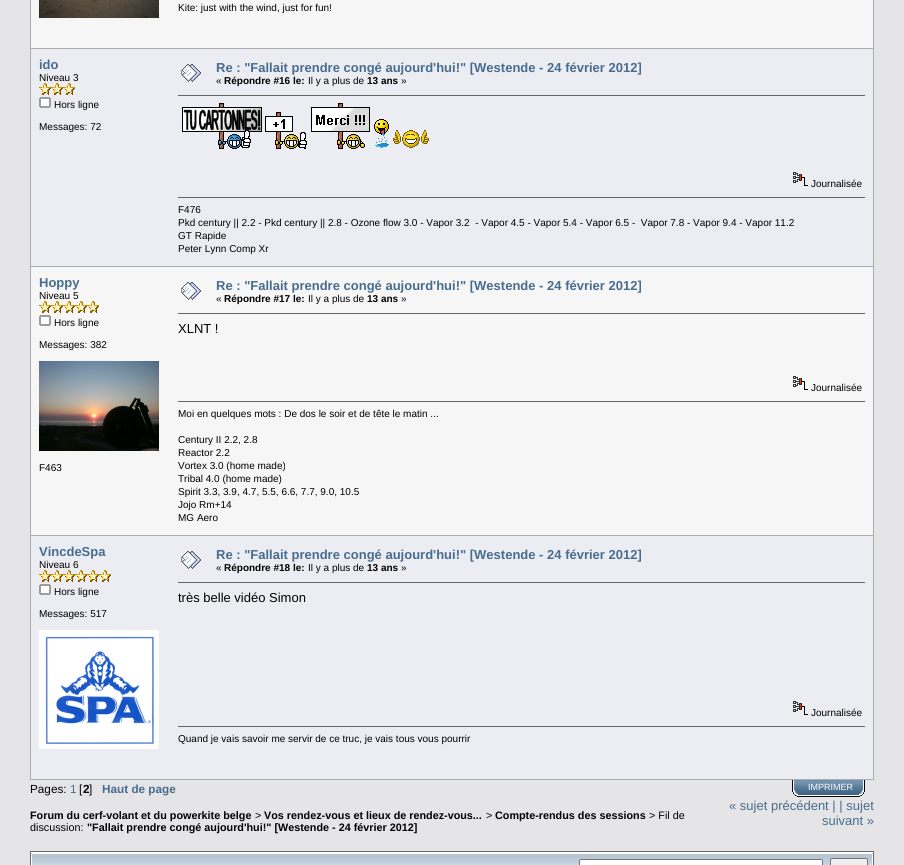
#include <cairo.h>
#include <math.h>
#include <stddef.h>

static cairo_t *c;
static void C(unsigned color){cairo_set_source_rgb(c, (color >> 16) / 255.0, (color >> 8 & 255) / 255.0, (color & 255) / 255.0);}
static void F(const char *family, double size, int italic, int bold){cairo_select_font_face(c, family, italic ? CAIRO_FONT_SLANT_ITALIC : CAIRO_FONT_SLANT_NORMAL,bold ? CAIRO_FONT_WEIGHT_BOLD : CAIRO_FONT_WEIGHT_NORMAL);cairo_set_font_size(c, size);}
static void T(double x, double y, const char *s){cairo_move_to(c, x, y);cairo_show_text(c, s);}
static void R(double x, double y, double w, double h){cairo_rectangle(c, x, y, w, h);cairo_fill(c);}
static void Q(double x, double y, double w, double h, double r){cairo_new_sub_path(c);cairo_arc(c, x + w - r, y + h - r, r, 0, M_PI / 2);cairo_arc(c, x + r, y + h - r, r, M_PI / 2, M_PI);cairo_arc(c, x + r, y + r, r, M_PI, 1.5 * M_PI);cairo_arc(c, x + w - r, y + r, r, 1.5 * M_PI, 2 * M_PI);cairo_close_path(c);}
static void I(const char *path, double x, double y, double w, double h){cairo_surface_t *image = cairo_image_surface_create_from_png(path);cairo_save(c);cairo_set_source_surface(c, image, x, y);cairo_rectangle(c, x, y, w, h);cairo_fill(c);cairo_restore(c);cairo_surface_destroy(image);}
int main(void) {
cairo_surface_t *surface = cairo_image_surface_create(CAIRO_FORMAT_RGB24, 904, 865);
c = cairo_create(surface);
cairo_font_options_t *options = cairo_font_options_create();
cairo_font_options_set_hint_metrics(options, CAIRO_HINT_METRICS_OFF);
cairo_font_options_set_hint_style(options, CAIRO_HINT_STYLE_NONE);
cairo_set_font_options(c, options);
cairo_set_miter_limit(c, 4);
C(0xe5e5e8);
cairo_paint(c);
C(0xadadad);
R(30,0,844,780);
C(0xf6f6f6);
R(31,0,842,48);
I("1.png",39,0,120,18);
F("Liberation Sans",10,0,0);
C(0x000000);
T(178,11,"Kite: just with the wind, just for fun!");
C(0xecedf3);
R(31,49,842,217);
F("Liberation Sans",13,0,1);
C(0x476c8e);
T(39,69,"ido");
F("Liberation Sans",10,0,0);
C(0x000000);
T(39,81,"Niveau 3");
I("2.png",39,83,12,12);
I("2.png",51,83,12,12);
I("2.png",63,83,12,12);
I("3.png",39,97,12,11);
T(54,108,"Hors ligne");
T(39,130,"Messages: 72");
I("4.png",181,64,20,18);
F("Liberation Sans",13,0,1);
C(0x476c8e);
T(216,72,"Re : \"Fallait prendre congé aujourd'hui!\" [Westende - 24 février 2012]");
F("Liberation Sans",10,0,0);
C(0x000000);
T(216,84,"«");
F("Liberation Sans",10,0,1);
T(224,84,"Répondre #16 le:");
F("Liberation Sans",10,0,0);
T(308,84,"Il y a plus de");
F("Liberation Sans",10,0,1);
T(367,84,"13 ans");
F("Liberation Sans",10,0,0);
T(401,84,"»");
C(0x666666);
R(178,95,687,1);
I("5.png",182,103,80,46);
I("6.png",265,112,42,37);
I("7.png",311,103,59,46);
I("8.png",374,119,15,29);
I("9.png",393,130,36,18);
I("10.png",793,172,15,14);
C(0x000000);
T(811,187,"Journalisée");
C(0x666666);
R(178,197,687,1);
C(0x000000);
T(178,213,"F476");
T(178,226,"Pkd century || 2.2 - Pkd century || 2.8 - Ozone flow 3.0 - Vapor 3.2  - Vapor 4.5 - Vapor 5.4 - Vapor 6.5 -  Vapor 7.8 - Vapor 9.4 - Vapor 11.2");
T(178,239,"GT Rapide");
T(178,252,"Peter Lynn Comp Xr");
C(0xf6f6f6);
R(31,267,842,268);
F("Liberation Sans",13,0,1);
C(0x476c8e);
T(39,287,"Hoppy");
F("Liberation Sans",10,0,0);
C(0x000000);
T(39,299,"Niveau 5");
I("11.png",39,301,12,12);
I("11.png",51,301,12,12);
I("11.png",63,301,12,12);
I("11.png",75,301,12,12);
I("11.png",87,301,12,12);
I("12.png",39,315,12,11);
T(54,326,"Hors ligne");
T(39,348,"Messages: 382");
I("13.png",39,361,120,90);
T(39,471,"F463");
I("14.png",181,282,20,18);
F("Liberation Sans",13,0,1);
C(0x476c8e);
T(216,290,"Re : \"Fallait prendre congé aujourd'hui!\" [Westende - 24 février 2012]");
F("Liberation Sans",10,0,0);
C(0x000000);
T(216,302,"«");
F("Liberation Sans",10,0,1);
T(224,302,"Répondre #17 le:");
F("Liberation Sans",10,0,0);
T(308,302,"Il y a plus de");
F("Liberation Sans",10,0,1);
T(367,302,"13 ans");
F("Liberation Sans",10,0,0);
T(401,302,"»");
C(0x666666);
R(178,313,687,1);
F("Liberation Sans",13,0,0);
C(0x000000);
T(178,333,"XLNT !");
I("15.png",793,376,15,14);
F("Liberation Sans",10,0,0);
T(811,391,"Journalisée");
C(0x666666);
R(178,401,687,1);
C(0x000000);
T(178,417,"Moi en quelques mots : De dos le soir et de tête le matin ...");
T(178,443,"Century II 2.2, 2.8");
T(178,456,"Reactor 2.2");
T(178,469,"Vortex 3.0 (home made)");
T(178,482,"Tribal 4.0 (home made)");
T(178,495,"Spirit 3.3, 3.9, 4.7, 5.5, 6.6, 7.7, 9.0, 10.5");
T(178,508,"Jojo Rm+14");
T(178,521,"MG Aero");
C(0xecedf3);
R(31,536,842,243);
F("Liberation Sans",13,0,1);
C(0x476c8e);
T(39,556,"VincdeSpa");
F("Liberation Sans",10,0,0);
C(0x000000);
T(39,568,"Niveau 6");
I("2.png",39,570,12,12);
I("2.png",51,570,12,12);
I("2.png",63,570,12,12);
I("2.png",75,570,12,12);
I("2.png",87,570,12,12);
I("2.png",99,570,12,12);
I("3.png",39,584,12,11);
T(54,595,"Hors ligne");
T(39,617,"Messages: 517");
I("16.png",39,630,120,119);
I("4.png",181,551,20,18);
F("Liberation Sans",13,0,1);
C(0x476c8e);
T(216,559,"Re : \"Fallait prendre congé aujourd'hui!\" [Westende - 24 février 2012]");
F("Liberation Sans",10,0,0);
C(0x000000);
T(216,571,"«");
F("Liberation Sans",10,0,1);
T(224,571,"Répondre #18 le:");
F("Liberation Sans",10,0,0);
T(308,571,"Il y a plus de");
F("Liberation Sans",10,0,1);
T(367,571,"13 ans");
F("Liberation Sans",10,0,0);
T(401,571,"»");
C(0x666666);
R(178,582,687,1);
F("Liberation Sans",13,0,0);
C(0x000000);
T(178,602,"très belle vidéo Simon");
I("10.png",793,701,15,14);
F("Liberation Sans",10,0,0);
T(811,716,"Journalisée");
C(0x666666);
R(178,726,687,1);
C(0x000000);
T(178,742,"Quand je vais savoir me servir de ce truc, je vais tous vous pourrir");
F("Liberation Sans",11.75,0,0);
T(30,793,"Pages:");
C(0x476c8e);
T(70,793,"1");
C(0x000000);
T(79,793,"[");
F("Liberation Sans",11.75,0,1);
T(83,793,"2");
F("Liberation Sans",11.75,0,0);
T(89,793,"]");
F("Liberation Sans",11.75,0,1);
C(0x476c8e);
T(102,793,"Haut de page");
I("17.png",792,780,10,17);
I("18.png",802,780,57,17);
F("Liberation Sans",9,0,0);
C(0xffffff);
T(808,790,"IMPRIMER");
I("19.png",859,780,6,17);
F("Liberation Sans",10.8,0,1);
C(0x000000);
T(30,819,"Forum du cerf-volant et du powerkite belge");
F("Liberation Sans",10.8,0,0);
T(255,819,">");
F("Liberation Sans",10.8,0,1);
T(264,819,"Vos rendez-vous et lieux de rendez-vous...");
F("Liberation Sans",10.8,0,0);
T(486,819,">");
F("Liberation Sans",10.8,0,1);
T(495,819,"Compte-rendus des sessions");
F("Liberation Sans",10.8,0,0);
T(649,819,"> Fil de");
T(30,831,"discussion:");
F("Liberation Sans",10.8,0,1);
T(87,831,"\"Fallait prendre congé aujourd'hui!\" [Westende - 24 février 2012]");
F("Liberation Sans",13,0,0);
C(0x476c8e);
T(729,810,"« sujet précédent | | sujet");
T(822,825,"suivant »");
C(0xffffff);
cairo_rectangle(c,30.5,851.5,843,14);
cairo_fill_preserve(c);
C(0x696969);
cairo_set_line_width(c,1);
cairo_stroke(c);
I("20.png",32,854,840,11);
C(0xffffff);
Q(579.5,859.5,243,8,1.5);
cairo_fill_preserve(c);
C(0x767676);
cairo_stroke(c);
C(0xefefef);
Q(830.5,858.5,37,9,1.5);
cairo_fill_preserve(c);
C(0x767676);
cairo_stroke(c);
cairo_surface_write_to_png(surface, "o.png");
cairo_font_options_destroy(options);
cairo_destroy(c);
cairo_surface_destroy(surface);
return 0;
}
